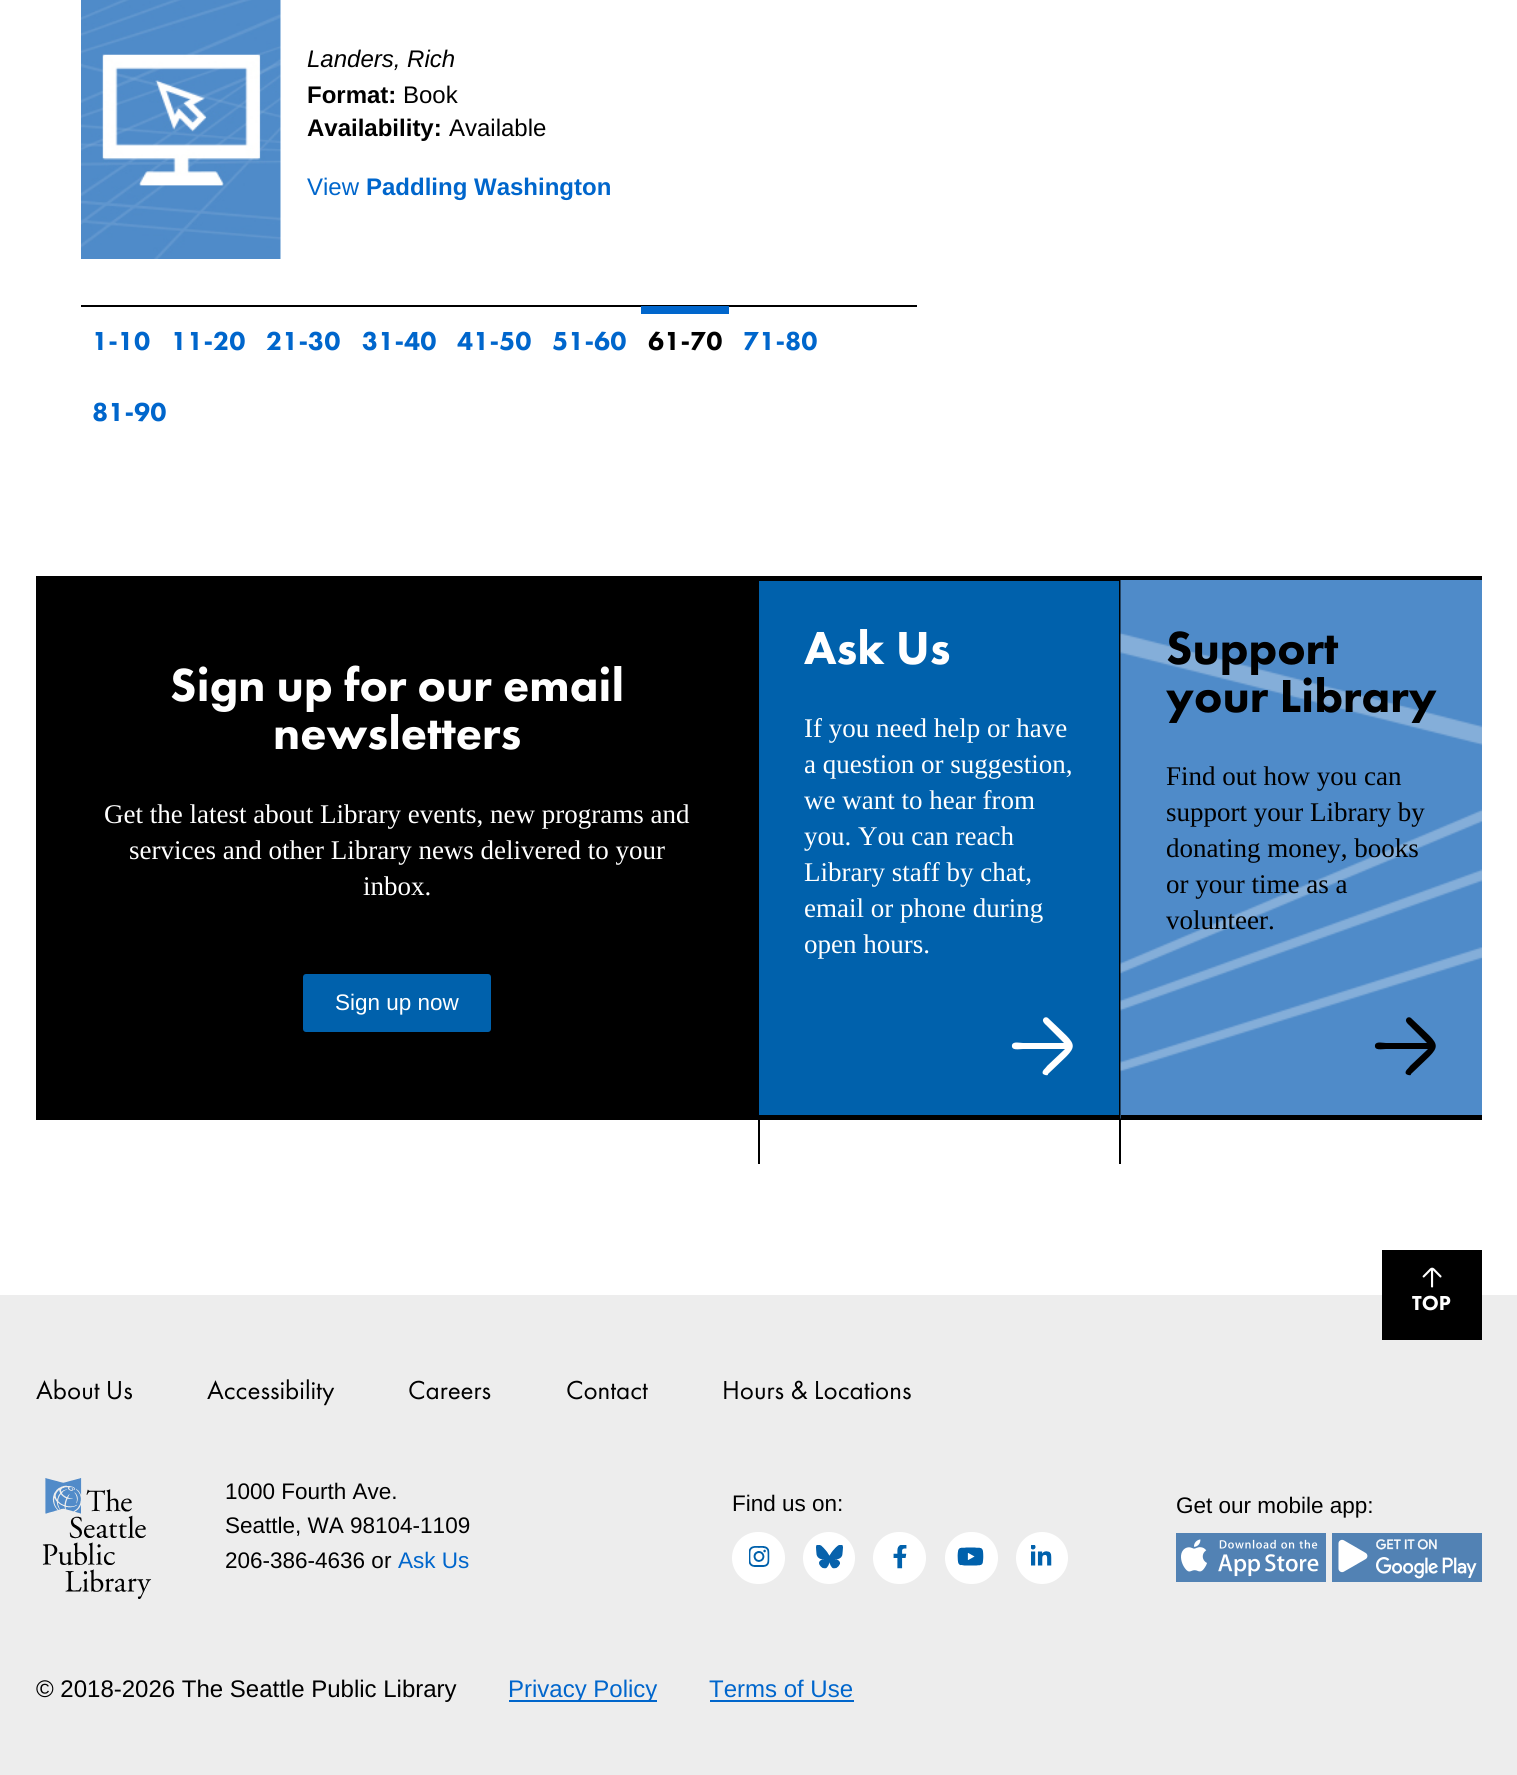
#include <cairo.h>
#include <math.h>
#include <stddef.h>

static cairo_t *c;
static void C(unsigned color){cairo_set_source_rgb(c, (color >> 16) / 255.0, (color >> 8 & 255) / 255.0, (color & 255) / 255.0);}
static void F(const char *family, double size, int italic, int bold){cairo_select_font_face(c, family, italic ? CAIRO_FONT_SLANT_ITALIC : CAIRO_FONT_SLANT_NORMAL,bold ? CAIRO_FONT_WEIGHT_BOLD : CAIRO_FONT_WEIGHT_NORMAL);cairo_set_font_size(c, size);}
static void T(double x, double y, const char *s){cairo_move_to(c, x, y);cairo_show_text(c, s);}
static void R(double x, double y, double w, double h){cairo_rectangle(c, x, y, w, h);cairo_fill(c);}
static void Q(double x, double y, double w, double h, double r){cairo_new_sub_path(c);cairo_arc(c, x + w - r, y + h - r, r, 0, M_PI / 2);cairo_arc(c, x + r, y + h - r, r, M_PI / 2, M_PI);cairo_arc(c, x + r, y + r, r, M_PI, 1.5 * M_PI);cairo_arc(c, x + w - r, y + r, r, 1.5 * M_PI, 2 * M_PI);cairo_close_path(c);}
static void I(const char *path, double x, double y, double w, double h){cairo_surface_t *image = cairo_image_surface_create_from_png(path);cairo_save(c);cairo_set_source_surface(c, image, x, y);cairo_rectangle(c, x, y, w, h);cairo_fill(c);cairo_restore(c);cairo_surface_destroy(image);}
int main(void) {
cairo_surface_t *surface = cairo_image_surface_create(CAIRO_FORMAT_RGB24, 1517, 1775);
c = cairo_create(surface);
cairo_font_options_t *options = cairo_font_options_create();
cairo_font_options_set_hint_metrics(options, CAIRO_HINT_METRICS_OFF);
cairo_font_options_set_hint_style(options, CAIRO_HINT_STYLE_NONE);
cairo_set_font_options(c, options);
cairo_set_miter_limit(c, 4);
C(0xededed);
cairo_paint(c);
C(0xffffff);
R(0,0,1517,1295);
I("1.png",81,0,200,259);
F("Liberation Sans",24,1,0);
C(0x000000);
T(307,67,"Landers, Rich");
F("Liberation Sans",24,0,1);
T(307,103,"Format:");
F("Liberation Sans",24,0,0);
T(403,103,"Book");
F("Liberation Sans",24,0,1);
T(307,136,"Availability:");
F("Liberation Sans",24,0,0);
T(449,136,"Available");
C(0x0066cc);
T(307,195,"View");
F("Liberation Sans",24,0,1);
T(366,195,"Paddling Washington");
C(0x000000);
R(81,305,836,2);
F("Futura PT Black",27,0,0);
C(0x0066cc);
T(92,350,"1-10");
T(171,350,"11-20");
T(266,350,"21-30");
T(362,350,"31-40");
T(457,350,"41-50");
T(552,350,"51-60");
R(641,306,88,8);
C(0x000000);
T(648,350,"61-70");
C(0x0066cc);
T(743,350,"71-80");
T(92,421,"81-90");
C(0x000000);
R(36,576,1446,5);
R(36,581,722,534);
R(758,581,1,538);
R(36,1115,723,5);
F("Futura PT Black",48,0,0);
C(0xffffff);
T(170,701,"Sign up for our email");
T(273,749,"newsletters");
F("Tinos",27,0,0);
T(104,823,"Get the latest about Library events, new programs and");
T(129,859,"services and other Library news delivered to your");
T(363,895,"inbox.");
C(0x0061ac);
Q(304,975,186,56,2);
cairo_fill_preserve(c);
cairo_stroke(c);
F("Liberation Sans",22.5,0,0);
C(0xffffff);
T(335,1010,"Sign up now");
C(0x000000);
R(758,1119,2,45);
C(0x0061ac);
R(759,581,360,534);
C(0x000000);
R(1119,581,2,538);
R(759,1115,362,5);
F("Futura PT Black",48,0,0);
C(0xffffff);
T(804,664,"Ask Us");
F("Tinos",27,0,0);
T(804,737,"If you need help or have");
T(804,773,"a question or suggestion,");
T(804,809,"we want to hear from");
T(804,845,"you. You can reach");
T(804,881,"Library staff by chat,");
T(804,917,"email or phone during");
T(804,953,"open hours.");
cairo_new_path(c);
cairo_move_to(c,1065,1049);
cairo_line_to(c,1047,1066);
cairo_curve_to(c,1046,1068,1041,1071,1043,1074);
cairo_line_to(c,1045,1075);
cairo_curve_to(c,1046,1075,1048,1076,1048,1074);
cairo_curve_to(c,1081,1042,1081,1050,1048,1018);
cairo_curve_to(c,1047,1017,1045,1017,1044,1018);
cairo_curve_to(c,1041,1021,1045,1024,1047,1026);
cairo_line_to(c,1064,1043);
cairo_line_to(c,1023,1043);
cairo_curve_to(c,1020,1043,1013,1041,1012,1045);
cairo_curve_to(c,1011,1051,1019,1049,1023,1049);
cairo_close_path(c);
cairo_fill(c);
C(0x000000);
R(1119,1119,2,45);
I("2.png",1120,580,362,539);
R(1121,1115,361,5);
F("Futura PT Black",48,0,0);
T(1166,664,"Support");
T(1166,712,"your Library");
F("Tinos",27,0,0);
T(1166,785,"Find out how you can");
T(1166,821,"support your Library by");
T(1166,857,"donating money, books");
T(1166,893,"or your time as a");
T(1166,929,"volunteer.");
cairo_new_path(c);
cairo_move_to(c,1428,1049);
cairo_line_to(c,1410,1066);
cairo_curve_to(c,1409,1068,1404,1071,1406,1074);
cairo_line_to(c,1408,1075);
cairo_curve_to(c,1409,1075,1411,1076,1411,1074);
cairo_curve_to(c,1444,1042,1444,1050,1411,1018);
cairo_curve_to(c,1410,1017,1408,1017,1407,1018);
cairo_curve_to(c,1404,1021,1408,1024,1410,1026);
cairo_line_to(c,1427,1043);
cairo_line_to(c,1386,1043);
cairo_curve_to(c,1383,1043,1376,1041,1375,1045);
cairo_curve_to(c,1374,1051,1382,1049,1386,1049);
cairo_close_path(c);
cairo_fill(c);
R(1382,1250,100,90);
I("3.png",1422,1267,20,21);
F("Futura PT Black",21,0,0);
C(0xffffff);
T(1412,1310,"TOP");
F("Futura PT",27,0,0);
C(0x000000);
T(36,1399,"About Us");
T(207,1399,"Accessibility");
T(408,1399,"Careers");
T(566,1399,"Contact");
T(722,1399,"Hours & Locations");
I("4.png",42,1478,110,121);
F("Liberation Sans",22.5,0,0);
T(225,1499,"1000 Fourth Ave.");
T(225,1533,"Seattle, WA 98104-1109");
T(225,1568,"206-386-4636 or");
C(0x0066cc);
T(398,1568,"Ask Us");
C(0x000000);
T(732,1511,"Find us on:");
C(0xffffff);
Q(733,1533,51,50,25);
cairo_fill_preserve(c);
cairo_stroke(c);
I("5.png",749,1546,21,21);
cairo_arc(c,829,1558,25,0,2 * M_PI);
cairo_fill_preserve(c);
cairo_stroke(c);
I("6.png",816,1545,27,24);
Q(874,1533,51,50,25);
cairo_fill_preserve(c);
cairo_stroke(c);
I("7.png",893,1545,14,24);
Q(946,1533,51,50,25);
cairo_fill_preserve(c);
cairo_stroke(c);
I("8.png",957,1547,27,19);
cairo_arc(c,1042,1558,25,0,2 * M_PI);
cairo_fill_preserve(c);
cairo_stroke(c);
I("9.png",1031,1545,21,21);
C(0x000000);
T(1176,1513,"Get our mobile app:");
I("10.png",1176,1533,150,49);
I("11.png",1332,1533,150,49);
F("Liberation Sans",24,0,0);
T(36,1697,"© 2018-2026 The Seattle Public Library");
C(0x0066cc);
R(509,1700,148,2);
T(508,1697,"Privacy Policy");
T(709,1697,"Terms of Use");
R(710,1700,144,2);
cairo_surface_write_to_png(surface, "o.png");
cairo_font_options_destroy(options);
cairo_destroy(c);
cairo_surface_destroy(surface);
return 0;
}
